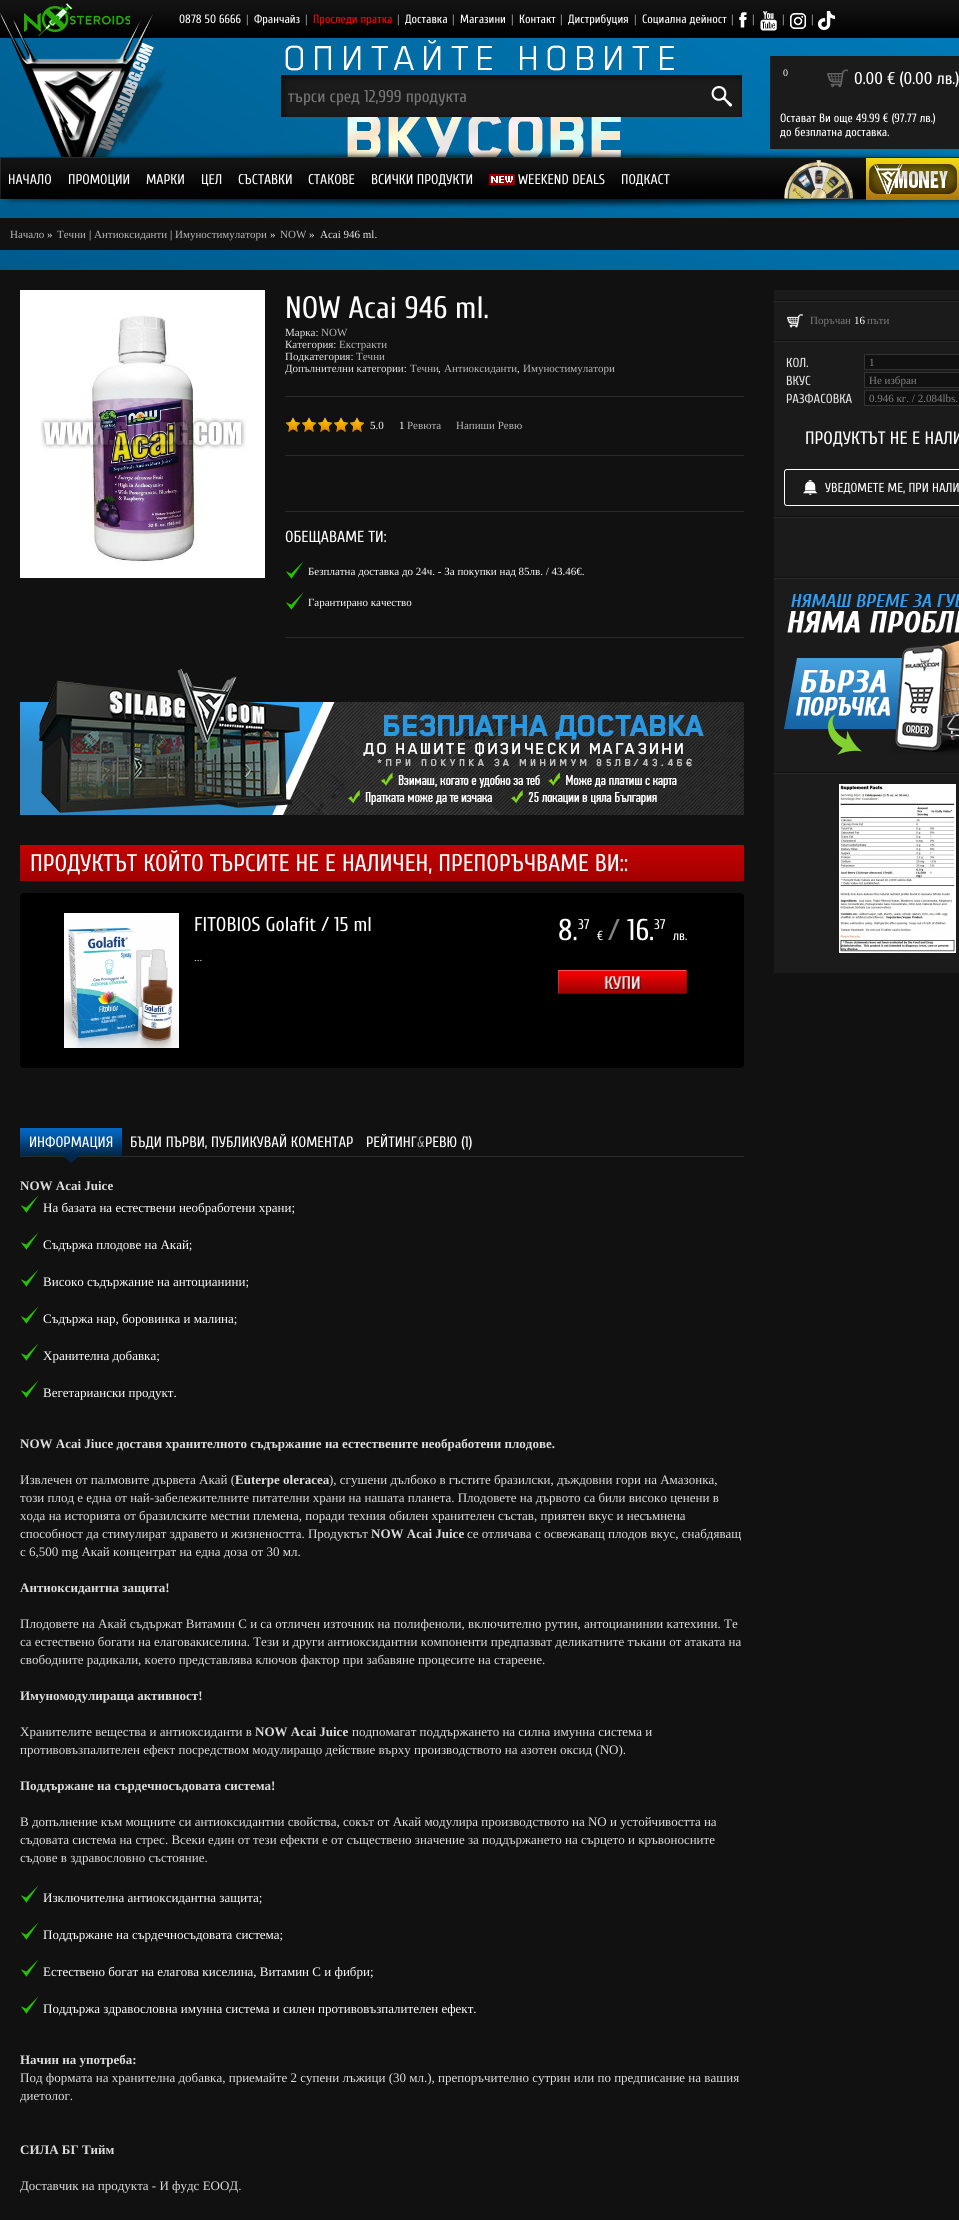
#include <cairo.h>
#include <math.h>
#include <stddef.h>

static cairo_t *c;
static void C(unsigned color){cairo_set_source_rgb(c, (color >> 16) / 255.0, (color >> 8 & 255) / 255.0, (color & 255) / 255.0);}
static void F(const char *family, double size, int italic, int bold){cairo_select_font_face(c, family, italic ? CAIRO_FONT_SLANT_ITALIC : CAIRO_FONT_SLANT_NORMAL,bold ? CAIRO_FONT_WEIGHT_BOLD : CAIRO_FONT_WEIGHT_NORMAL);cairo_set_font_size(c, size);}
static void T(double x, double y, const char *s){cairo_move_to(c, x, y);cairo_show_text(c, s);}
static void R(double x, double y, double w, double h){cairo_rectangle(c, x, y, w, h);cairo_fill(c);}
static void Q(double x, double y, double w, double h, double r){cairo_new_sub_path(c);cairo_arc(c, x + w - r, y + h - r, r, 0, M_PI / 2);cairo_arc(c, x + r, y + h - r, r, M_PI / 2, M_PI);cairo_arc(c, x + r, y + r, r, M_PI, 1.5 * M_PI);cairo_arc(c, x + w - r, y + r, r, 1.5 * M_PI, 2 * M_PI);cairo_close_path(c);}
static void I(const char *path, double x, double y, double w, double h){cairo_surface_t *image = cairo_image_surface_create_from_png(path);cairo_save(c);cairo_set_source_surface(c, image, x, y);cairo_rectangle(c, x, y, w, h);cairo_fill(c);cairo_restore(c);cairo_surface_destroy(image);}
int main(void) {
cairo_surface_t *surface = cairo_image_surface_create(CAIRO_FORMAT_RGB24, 959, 2220);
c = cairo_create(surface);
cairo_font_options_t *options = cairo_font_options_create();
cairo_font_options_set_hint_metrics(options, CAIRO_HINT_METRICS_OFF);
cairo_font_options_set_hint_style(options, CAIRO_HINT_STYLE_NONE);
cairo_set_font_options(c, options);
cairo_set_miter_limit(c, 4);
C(0xffffff);
cairo_paint(c);
I("1.png",0,38,959,232);
I("2.png",153,0,806,38);
I("3.png",0,0,153,38);
F("Cuprum",12,0,0);
C(0xffffff);
T(179,23,"0878 50 6666");
C(0x818181);
T(246,23,"|");
C(0xffffff);
T(254,23,"Франчайз");
C(0x818181);
T(305,23,"|");
C(0xff0000);
T(313,23,"Проследи пратка");
C(0x818181);
T(397,23,"|");
C(0xffffff);
T(405,23,"Доставка");
C(0x818181);
T(452,23,"|");
C(0xffffff);
T(460,23,"Магазини");
C(0x818181);
T(511,23,"|");
C(0xffffff);
T(519,23,"Контакт");
C(0x818181);
T(560,23,"|");
C(0xffffff);
T(568,23,"Дистрибуция");
C(0x818181);
T(634,23,"|");
C(0xffffff);
T(642,23,"Социална дейност");
C(0x818181);
T(731,23,"|");
I("4.png",739,12,8,16);
T(752,23,"|");
I("5.png",760,11,17,20);
T(782,23,"|");
I("6.png",790,13,16,16);
T(811,23,"|");
I("7.png",818,11,17,19);
I("8.png",10,38,157,119);
I("9.png",281,75,389,42);
F("Cuprum",17,0,0);
C(0x757575);
T(288,102,"търси сред 12,999 продукта");
I("10.png",670,75,34,42);
I("11.png",704,75,38,42);
C(0x1b1b1b);
R(770,56,189,93);
F("Liberation Serif",10,0,0);
C(0xffffff);
T(783,76,"0");
I("12.png",827,69,21,19);
F("Cuprum",17,0,0);
T(854,84,"0.00 € (0.00 лв.)");
F("Cuprum",12,0,0);
T(780,122,"Остават Ви още 49.99 € (97.77 лв.)");
T(780,136,"до безплатна доставка.");
I("13.png",0,150,959,59);
F("Cuprum",14,0,0);
T(8,184,"НАЧАЛО");
T(68,184,"ПРОМОЦИИ");
T(146,184,"МАРКИ");
T(201,184,"ЦЕЛ");
T(238,184,"СЪСТАВКИ");
T(308,184,"СТАКОВЕ");
T(371,184,"ВСИЧКИ ПРОДУКТИ");
I("14.png",489,174,26,11);
T(518,184,"WEEKEND DEALS");
T(621,184,"ПОДКАСТ");
I("15.png",784,160,70,39);
I("16.png",866,158,93,42);
C(0x111111);
R(0,218,959,32);
F("Liberation Serif",11,0,0);
C(0xb8b8b8);
T(10,238,"Начало");
C(0xe5e5e5);
T(47,238,"»");
C(0xb8b8b8);
T(57,238,"Течни");
C(0xe5e5e5);
T(89,238,"|");
C(0xb8b8b8);
T(94,238,"Антиоксиданти");
C(0xe5e5e5);
T(170,238,"|");
C(0xb8b8b8);
T(175,238,"Имуностимулатори");
C(0xe5e5e5);
T(270,238,"»");
C(0xb8b8b8);
T(280,238,"NOW");
C(0xe5e5e5);
T(309,238,"»");
T(320,238,"Acai 946 ml.");
C(0x111111);
R(0,270,959,1950);
I("17.png",20,290,245,288);
F("Cuprum",31,0,0);
C(0xffffff);
T(285,318,"NOW Acai 946 ml.");
C(0x2a2a2a);
R(285,396,459,1);
F("Liberation Serif",11,0,0);
C(0xe5e5e5);
T(285,336,"Марка:");
C(0xb8b8b8);
T(321,336,"NOW");
C(0xe5e5e5);
T(285,348,"Категория:");
C(0xb8b8b8);
T(339,348,"Екстракти");
C(0xe5e5e5);
T(285,360,"Подкатегория:");
C(0xb8b8b8);
T(356,360,"Течни");
C(0xe5e5e5);
T(285,372,"Допълнителни категории:");
C(0xb8b8b8);
T(410,372,"Течни");
C(0xe5e5e5);
T(438,372,",");
C(0xb8b8b8);
T(444,372,"Антиоксиданти");
C(0xe5e5e5);
T(517,372,",");
C(0xb8b8b8);
T(523,372,"Имуностимулатори");
I("18.png",285,417,16,15);
I("18.png",301,417,16,15);
I("18.png",317,417,16,15);
I("18.png",333,417,16,15);
I("18.png",349,417,16,15);
C(0xffffff);
T(370,429,"5.0");
T(399,429,"1");
C(0xb8b8b8);
T(407,429,"Ревюта");
T(456,429,"Напиши Ревю");
C(0x2a2a2a);
R(285,455,459,1);
R(285,511,459,1);
R(285,637,459,1);
F("Cuprum",16,0,0);
C(0xffffff);
T(285,542,"ОБЕЩАВАМЕ ТИ:");
I("19.png",285,561,19,18);
F("Liberation Serif",11,0,0);
T(308,575,"Безплатна доставка до 24ч. - За покупки над 85лв. / 43.46€.");
I("19.png",285,592,19,18);
T(308,606,"Гарантирано качество");
I("20.png",20,668,724,147);
I("21.png",20,845,724,36);
F("Cuprum",24,0,0);
T(30,871,"ПРОДУКТЪТ КОЙТО ТЪРСИТЕ НЕ Е НАЛИЧЕН, ПРЕПОРЪЧВАМЕ ВИ::");
C(0x000000);
Q(20,893,724,175,4);
cairo_fill(c);
I("22.png",64,913,115,135);
F("Cuprum",20,0,0);
C(0xffffff);
T(194,931,"FITOBIOS Golafit / 15 ml");
F("Liberation Serif",11,0,0);
C(0xe5e5e5);
T(194,961,"...");
F("Cuprum",30,0,0);
C(0xffffff);
T(558,940,"8.");
F("Cuprum",14,0,0);
T(578,929,"37");
F("Cuprum",13,0,0);
T(597,940,"€");
F("Cuprum",30,0,0);
C(0x818181);
T(608,940,"/");
C(0xffffff);
T(627,940,"16.");
F("Cuprum",14,0,0);
T(654,929,"37");
F("Cuprum",13,0,0);
T(673,940,"лв.");
I("23.png",558,970,129,24);
C(0x2a2a2a);
R(20,1156,724,1);
I("24.png",20,1128,102,35);
F("Cuprum",15,0,0);
C(0xffffff);
T(29,1147,"ИНФОРМАЦИЯ");
T(130,1147,"БЪДИ ПЪРВИ, ПУБЛИКУВАЙ КОМЕНТАР");
T(366,1147,"РЕЙТИНГ");
C(0x9e9e9e);
T(417,1147,"&");
C(0xffffff);
T(425,1147,"РЕВЮ (1)");
F("Liberation Serif",13,0,1);
C(0xdddddd);
T(20,1190,"NOW Acai Juice");
I("19.png",20,1195,19,18);
F("Liberation Serif",13,0,0);
C(0xffffff);
T(43,1212,"На базата на естествени необработени храни;");
I("19.png",20,1232,19,18);
T(43,1249,"Съдържа плодове на Акай;");
I("19.png",20,1269,19,18);
T(43,1286,"Високо съдържание на антоцианини;");
I("19.png",20,1306,19,18);
T(43,1323,"Съдържа нар, боровинка и малина;");
I("19.png",20,1343,19,18);
T(43,1360,"Хранителна добавка;");
I("19.png",20,1380,19,18);
T(43,1397,"Вегетариански продукт.");
F("Liberation Serif",13,0,1);
C(0xdddddd);
T(20,1448,"NOW Acai Jiuce доставя хранителното съдържание на естествените необработени плодове.");
F("Liberation Serif",13,0,0);
T(20,1484,"Извлечен от палмовите дървета Акай (");
F("Liberation Serif",13,0,1);
T(235,1484,"Euterpe oleracea");
F("Liberation Serif",13,0,0);
T(329,1484,"), сгушени дълбоко в гъстите бразилски, дъждовни гори на Амазонка,");
T(20,1502,"този плод е една от най-забележителните питателни храни на нашата планета. Плодовете на дървото са били високо ценени в");
T(20,1520,"хода на историята от бразилските местни племена, поради техния обилен хранителен състав, приятен вкус и несъмнена");
T(20,1538,"способност да стимулират здравето и жизнеността. Продуктът");
F("Liberation Serif",13,0,1);
T(371,1538,"NOW Acai Juice");
F("Liberation Serif",13,0,0);
T(467,1538,"се отличава с освежаващ плодов вкус, снабдяващ");
T(20,1556,"с 6,500 mg Акай концентрат на една доза от 30 мл.");
F("Liberation Serif",13,0,1);
T(20,1592,"Антиоксидантна защита!");
F("Liberation Serif",13,0,0);
T(20,1628,"Плодовете на Акай съдържат Витамин C и са отличен източник на полифеноли, включително рутин, антоцианинии катехини. Те");
T(20,1646,"са естествено богати на елаговакиселина. Тези и други антиоксидантни компоненти предпазват деликатните тъкани от атаката на");
T(20,1664,"свободните радикали, което представлява ключов фактор при забавяне процесите на стареене.");
F("Liberation Serif",13,0,1);
T(20,1700,"Имуномодулираща активност!");
F("Liberation Serif",13,0,0);
T(20,1736,"Хранителите вещества и антиоксиданти в");
F("Liberation Serif",13,0,1);
T(255,1736,"NOW Acai Juice");
F("Liberation Serif",13,0,0);
T(352,1736,"подпомагат поддържането на силна имунна система и");
T(20,1754,"противовъзпалителен ефект посредством модулиращо действие върху производството на азотен оксид (NO).");
F("Liberation Serif",13,0,1);
T(20,1790,"Поддържане на сърдечносъдовата система!");
F("Liberation Serif",13,0,0);
T(20,1826,"В допълнение към мощните си антиоксидантни свойства, сокът от Акай модулира производството на NO и устойчивостта на");
T(20,1844,"съдовата система на стрес. Всеки един от тези ефекти е от съществено значение за поддържането на сърцето и кръвоносните");
T(20,1862,"съдове в здравословно състояние.");
I("19.png",20,1885,19,18);
C(0xffffff);
T(43,1902,"Изключителна антиоксидантна защита;");
I("19.png",20,1922,19,18);
T(43,1939,"Поддържане на сърдечносъдовата система;");
I("19.png",20,1959,19,18);
T(43,1976,"Естествено богат на елагова киселина, Витамин C и фибри;");
I("19.png",20,1996,19,18);
T(43,2013,"Поддържа здравословна имунна система и силен противовъзпалителен ефект.");
F("Liberation Serif",13,0,1);
C(0xdddddd);
T(20,2064,"Начин на употреба:");
F("Liberation Serif",13,0,0);
T(20,2082,"Под формата на хранителна добавка, приемайте 2 супени лъжици (30 мл.), препоръчително сутрин или по предписание на вашия");
T(20,2100,"диетолог.");
F("Liberation Serif",13,0,1);
T(20,2154,"СИЛА БГ Тийм");
F("Liberation Serif",13,0,0);
T(20,2190,"Доставчик на продукта - И фудс ЕООД.");
C(0x1b1b1b);
R(774,290,185,683);
I("25.png",774,300,185,2);
I("26.png",787,314,16,14);
F("Liberation Serif",11,0,0);
C(0x7b7b7b);
T(810,324,"Поръчан");
C(0xffffff);
T(854,324,"16");
C(0x7b7b7b);
T(867,324,"пъти");
I("25.png",774,340,185,2);
F("Cuprum",13,0,0);
C(0xe5e5e5);
T(786,367,"КОЛ.");
C(0x111111);
cairo_rectangle(c,864.5,354.5,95,15);
cairo_fill_preserve(c);
C(0x333333);
cairo_set_line_width(c,1);
cairo_stroke(c);
F("Liberation Serif",11,0,0);
C(0x818181);
T(869,366,"1");
F("Cuprum",13,0,0);
C(0xe5e5e5);
T(786,385,"ВКУС");
C(0x111111);
cairo_rectangle(c,864.5,372.5,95,15);
cairo_fill_preserve(c);
C(0x333333);
cairo_stroke(c);
F("Liberation Serif",11,0,0);
C(0x818181);
T(869,384,"Не избран");
F("Cuprum",13,0,0);
C(0xe5e5e5);
T(786,403,"РАЗФАСОВКА");
C(0x111111);
cairo_rectangle(c,864.5,390.5,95,15);
cairo_fill_preserve(c);
C(0x333333);
cairo_stroke(c);
F("Liberation Serif",11,0,0);
C(0x818181);
T(869,402,"0.946 кг. / 2.084lbs.");
F("Cuprum",18,0,0);
C(0xffffff);
T(805,444,"ПРОДУКТЪТ НЕ Е НАЛИ");
Q(784.5,469.5,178,36,2.5);
cairo_stroke(c);
I("27.png",803,480,15,15);
F("Cuprum",13,0,0);
T(825,492,"УВЕДОМЕТЕ МЕ, ПРИ НАЛИ");
I("25.png",774,516,185,2);
I("25.png",774,577,185,2);
I("28.png",784,594,175,161);
I("25.png",774,772,185,2);
I("29.png",839,784,117,169);
cairo_surface_write_to_png(surface, "o.png");
cairo_font_options_destroy(options);
cairo_destroy(c);
cairo_surface_destroy(surface);
return 0;
}
